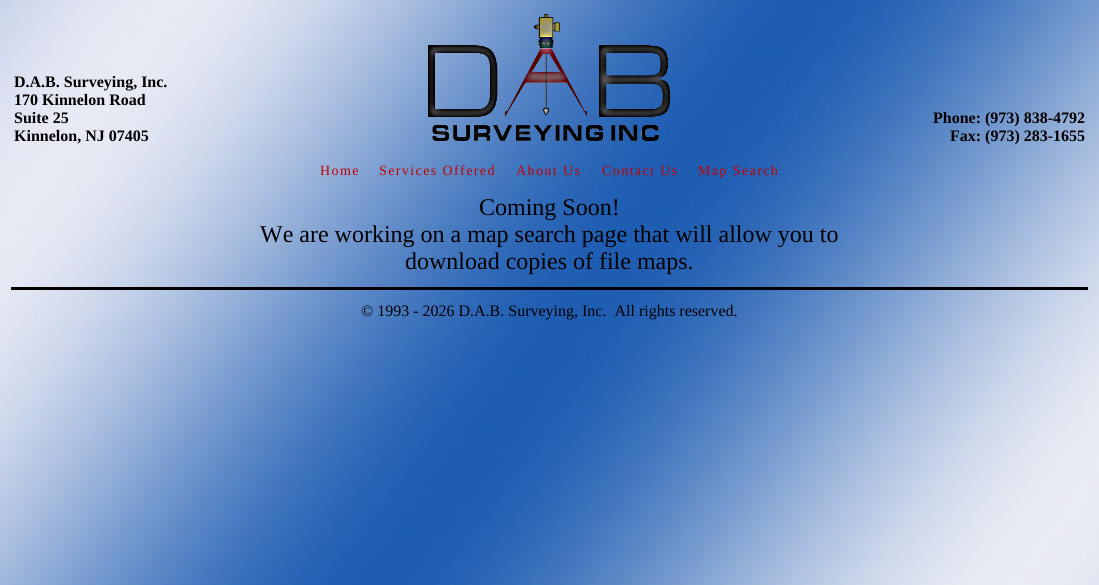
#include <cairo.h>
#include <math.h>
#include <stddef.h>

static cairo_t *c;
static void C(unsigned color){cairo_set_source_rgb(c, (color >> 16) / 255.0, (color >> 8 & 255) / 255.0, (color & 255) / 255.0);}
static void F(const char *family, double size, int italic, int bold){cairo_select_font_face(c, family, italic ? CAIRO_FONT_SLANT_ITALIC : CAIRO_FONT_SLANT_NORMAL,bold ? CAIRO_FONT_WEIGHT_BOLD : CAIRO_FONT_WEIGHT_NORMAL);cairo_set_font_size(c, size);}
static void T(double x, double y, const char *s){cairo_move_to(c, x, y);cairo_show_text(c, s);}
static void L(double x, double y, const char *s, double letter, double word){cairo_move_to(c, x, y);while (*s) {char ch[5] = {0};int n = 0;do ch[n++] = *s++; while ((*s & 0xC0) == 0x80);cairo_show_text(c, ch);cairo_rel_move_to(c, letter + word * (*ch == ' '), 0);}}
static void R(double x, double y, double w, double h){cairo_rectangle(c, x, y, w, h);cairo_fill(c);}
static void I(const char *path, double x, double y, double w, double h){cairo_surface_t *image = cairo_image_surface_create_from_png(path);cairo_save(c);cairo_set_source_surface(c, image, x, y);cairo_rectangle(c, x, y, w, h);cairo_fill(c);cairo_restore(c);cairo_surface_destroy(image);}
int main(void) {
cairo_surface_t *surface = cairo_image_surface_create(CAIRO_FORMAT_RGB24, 1099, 585);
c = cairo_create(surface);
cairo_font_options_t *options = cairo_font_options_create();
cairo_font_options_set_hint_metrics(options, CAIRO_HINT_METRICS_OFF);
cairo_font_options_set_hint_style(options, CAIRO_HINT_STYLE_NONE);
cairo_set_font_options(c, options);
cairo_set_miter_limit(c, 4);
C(0xffffff);
cairo_paint(c);
I("1.png",0,0,1099,585);
F("Liberation Serif",16,0,1);
C(0x000000);
T(14,87,"D.A.B. Surveying, Inc.");
T(14,105,"170 Kinnelon Road");
T(14,123,"Suite 25");
T(14,141,"Kinnelon, NJ 07405");
I("2.png",428,14,242,127);
T(933,123,"Phone: (973) 838-4792");
T(950,141,"Fax: (973) 283-1655");
F("Liberation Serif",14,0,0);
C(0xc00000);
L(320,175,"Home",1.4,0);
L(379,175,"Services Offered",1.4,0);
L(516,175,"About Us",1.4,0);
L(602,175,"Contact Us",1.4,0);
L(698,175,"Map Search",1.4,0);
F("Liberation Serif",24,0,0);
C(0x000000);
T(479,215,"Coming Soon!");
T(260,242,"We are working on a map search page that will allow you to");
T(405,269,"download copies of file maps.");
R(11,287,1077,3);
F("Liberation Serif",16,0,0);
T(361,316,"© 1993 - 2026 D.A.B. Surveying, Inc.  All rights reserved.");
cairo_surface_write_to_png(surface, "o.png");
cairo_font_options_destroy(options);
cairo_destroy(c);
cairo_surface_destroy(surface);
return 0;
}
